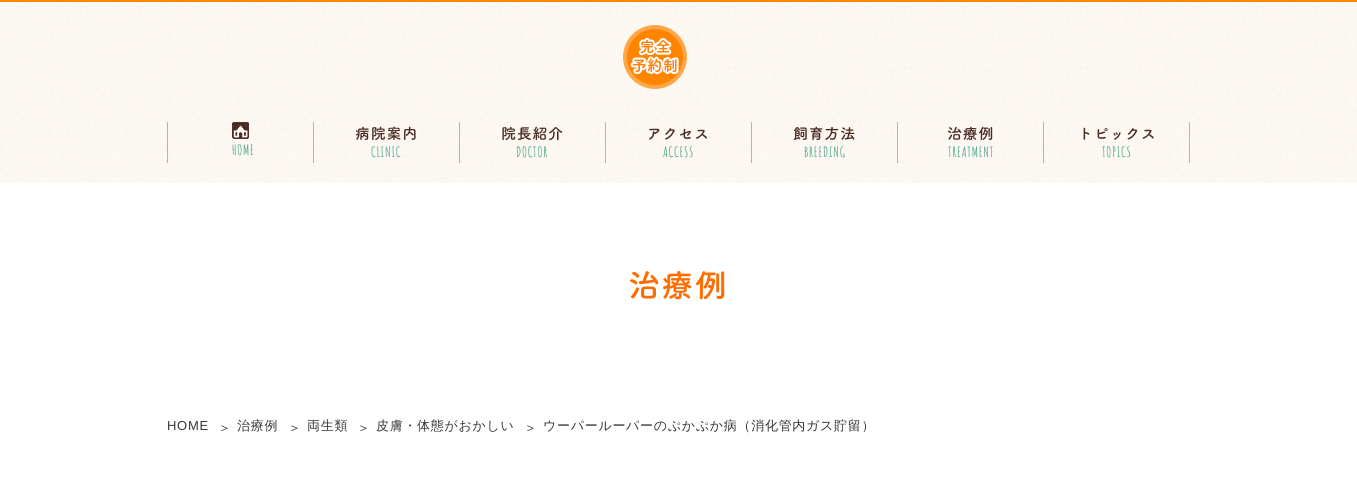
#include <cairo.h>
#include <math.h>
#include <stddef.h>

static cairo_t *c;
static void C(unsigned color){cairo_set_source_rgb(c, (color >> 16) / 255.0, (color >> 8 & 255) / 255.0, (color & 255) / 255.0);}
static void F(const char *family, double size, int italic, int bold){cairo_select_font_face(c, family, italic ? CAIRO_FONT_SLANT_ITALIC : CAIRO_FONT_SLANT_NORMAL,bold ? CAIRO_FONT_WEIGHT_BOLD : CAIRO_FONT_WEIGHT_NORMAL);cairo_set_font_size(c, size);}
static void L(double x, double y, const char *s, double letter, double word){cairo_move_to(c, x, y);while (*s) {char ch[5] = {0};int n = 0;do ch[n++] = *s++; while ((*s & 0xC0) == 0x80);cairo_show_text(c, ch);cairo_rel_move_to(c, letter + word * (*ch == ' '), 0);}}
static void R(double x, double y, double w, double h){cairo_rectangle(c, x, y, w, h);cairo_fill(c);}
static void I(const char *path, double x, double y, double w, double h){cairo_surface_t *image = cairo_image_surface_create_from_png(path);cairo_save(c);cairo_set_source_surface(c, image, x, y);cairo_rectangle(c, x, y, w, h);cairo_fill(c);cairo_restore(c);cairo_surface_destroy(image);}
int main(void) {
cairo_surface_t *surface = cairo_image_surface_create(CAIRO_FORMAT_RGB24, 1357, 479);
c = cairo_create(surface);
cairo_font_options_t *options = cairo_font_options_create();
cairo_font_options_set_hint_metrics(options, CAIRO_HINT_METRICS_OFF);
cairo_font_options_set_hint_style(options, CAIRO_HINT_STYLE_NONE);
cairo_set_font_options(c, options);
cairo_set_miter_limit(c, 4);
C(0xffffff);
cairo_paint(c);
I("1.png",0,2,1357,181);
C(0xff8400);
R(0,0,1357,2);
I("2.png",623,25,64,64);
C(0xc1aea5);
R(313,122,1,41);
R(167,122,1,41);
I("3.png",232,122,17,17);
F("Amatic SC",14,0,1);
C(0x57aa94);
L(232,155,"HOME",.7,0);
C(0xc1aea5);
R(459,122,1,41);
F("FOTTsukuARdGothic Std",15,0,1);
C(0x4a2c23);
L(355,139,"病院案内",.75,0);
F("Amatic SC",14,0,1);
C(0x57aa94);
L(371,157,"CLINIC",.7,0);
C(0xc1aea5);
R(605,122,1,41);
F("FOTTsukuARdGothic Std",15,0,1);
C(0x4a2c23);
L(501,139,"院長紹介",.75,0);
F("Amatic SC",14,0,1);
C(0x57aa94);
L(516,157,"DOCTOR",.7,0);
C(0xc1aea5);
R(751,122,1,41);
F("FOTTsukuARdGothic Std",15,0,1);
C(0x4a2c23);
L(647,139,"アクセス",.75,0);
F("Amatic SC",14,0,1);
C(0x57aa94);
L(663,157,"ACCESS",.7,0);
C(0xc1aea5);
R(897,122,1,41);
F("FOTTsukuARdGothic Std",15,0,1);
C(0x4a2c23);
L(793,139,"飼育方法",.75,0);
F("Amatic SC",14,0,1);
C(0x57aa94);
L(804,157,"BREEDING",.7,0);
C(0xc1aea5);
R(1043,122,1,41);
F("FOTTsukuARdGothic Std",15,0,1);
C(0x4a2c23);
L(947,139,"治療例",.75,0);
F("Amatic SC",14,0,1);
C(0x57aa94);
L(948,157,"TREATMENT",.7,0);
C(0xc1aea5);
R(1189,122,1,41);
F("FOTTsukuARdGothic Std",15,0,1);
C(0x4a2c23);
L(1078,139,"トピックス",.75,0);
F("Amatic SC",14,0,1);
C(0x57aa94);
L(1102,157,"TOPICS",.7,0);
F("FOTTsukuARdGothic Std",32,0,1);
C(0xff6c00);
L(628,297,"治療例",1.5,0);
F("Liberation Sans",13,0,0);
C(0x3d3737);
L(167,430,"HOME",.7,0);
F("WenQuanYi Zen Hei Medium",13,0,0);
C(0x333333);
L(218,432,"＞",.7,0);
C(0x3d3737);
L(237,430,"治療例",.7,0);
C(0x333333);
L(288,432,"＞",.7,0);
C(0x3d3737);
L(307,430,"両生類",.7,0);
C(0x333333);
L(357,432,"＞",.7,0);
C(0x3d3737);
L(376,430,"皮膚・体態がおかしい",.7,0);
C(0x333333);
L(524,432,"＞",.7,0);
L(543,430,"ウーパールーパーのぷかぷか病（消化管内ガス貯留）",.7,0);
cairo_surface_write_to_png(surface, "o.png");
cairo_font_options_destroy(options);
cairo_destroy(c);
cairo_surface_destroy(surface);
return 0;
}
